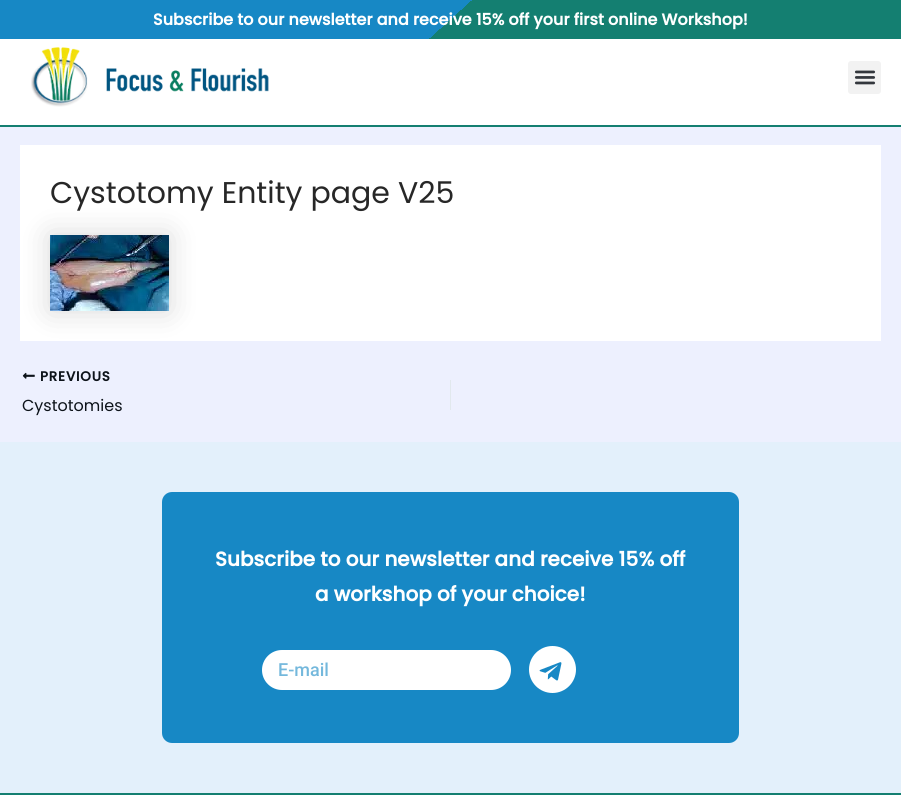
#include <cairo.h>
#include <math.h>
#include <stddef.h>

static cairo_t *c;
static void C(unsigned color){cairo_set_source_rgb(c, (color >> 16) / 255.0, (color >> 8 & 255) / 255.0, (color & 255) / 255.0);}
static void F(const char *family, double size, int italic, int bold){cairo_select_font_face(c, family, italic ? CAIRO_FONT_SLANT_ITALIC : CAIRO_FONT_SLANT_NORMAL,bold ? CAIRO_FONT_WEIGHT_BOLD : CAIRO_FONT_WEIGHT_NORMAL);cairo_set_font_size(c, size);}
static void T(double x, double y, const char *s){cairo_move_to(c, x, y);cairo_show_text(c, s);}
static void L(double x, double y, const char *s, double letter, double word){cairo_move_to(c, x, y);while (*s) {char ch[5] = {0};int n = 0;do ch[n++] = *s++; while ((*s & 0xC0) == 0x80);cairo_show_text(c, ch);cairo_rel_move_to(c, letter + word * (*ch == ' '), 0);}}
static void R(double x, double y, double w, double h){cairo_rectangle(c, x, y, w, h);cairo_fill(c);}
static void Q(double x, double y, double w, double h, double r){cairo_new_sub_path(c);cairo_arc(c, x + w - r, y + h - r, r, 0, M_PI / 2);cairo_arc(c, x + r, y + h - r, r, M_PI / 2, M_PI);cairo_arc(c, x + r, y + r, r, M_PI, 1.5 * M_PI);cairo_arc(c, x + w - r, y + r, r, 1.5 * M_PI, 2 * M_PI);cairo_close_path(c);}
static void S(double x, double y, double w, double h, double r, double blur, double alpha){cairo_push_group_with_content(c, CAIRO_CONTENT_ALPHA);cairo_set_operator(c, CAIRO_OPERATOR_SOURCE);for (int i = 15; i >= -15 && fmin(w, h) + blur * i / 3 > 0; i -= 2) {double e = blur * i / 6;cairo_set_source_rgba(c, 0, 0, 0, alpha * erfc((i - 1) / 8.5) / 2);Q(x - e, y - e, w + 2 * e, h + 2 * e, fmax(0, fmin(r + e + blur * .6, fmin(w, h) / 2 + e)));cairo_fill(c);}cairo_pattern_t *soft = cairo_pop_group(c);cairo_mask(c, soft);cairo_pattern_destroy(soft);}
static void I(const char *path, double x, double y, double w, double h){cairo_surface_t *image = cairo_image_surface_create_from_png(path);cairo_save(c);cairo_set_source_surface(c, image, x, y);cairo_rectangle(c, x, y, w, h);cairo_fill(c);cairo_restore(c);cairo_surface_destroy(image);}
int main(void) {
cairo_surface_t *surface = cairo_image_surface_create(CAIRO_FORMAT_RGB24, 901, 807);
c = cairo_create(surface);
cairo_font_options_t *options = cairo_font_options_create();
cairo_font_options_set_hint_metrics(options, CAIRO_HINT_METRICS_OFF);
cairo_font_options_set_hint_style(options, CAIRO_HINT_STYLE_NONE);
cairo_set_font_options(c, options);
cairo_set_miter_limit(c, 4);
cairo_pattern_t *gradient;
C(0xedf0fe);
cairo_paint(c);
gradient = cairo_pattern_create_linear(239,-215,662,254);
cairo_pattern_add_color_stop_rgba(gradient,.5,0.09,0.533,0.773,1);
cairo_pattern_add_color_stop_rgba(gradient,.5,0.078,0.498,0.443,1);
cairo_set_source(c,gradient);
cairo_pattern_destroy(gradient);
R(0,0,901,39);
F("Poppins",16,0,1);
C(0xffffff);
T(153,25,"Subscribe to our newsletter and receive 15% off your first online Workshop!");
R(0,39,901,86);
C(0x147f71);
R(0,125,901,2);
I("1.png",31,47,238,60);
C(0xf2f2f2);
Q(848,61,33,33,3);
cairo_fill(c);
I("2.png",854,70,22,15);
C(0xffffff);
R(20,145,861,196);
F("Poppins",30,0,0);
C(0x272727);
T(50,203,"Cystotomy Entity page V25");
C(0x000000);
S(50,235,119,76,0,15,.15);
I("3.png",50,235,119,76);
I("4.png",22,372,13,7);
F("Poppins",13.5,0,1);
C(0x0d131a);
L(40,381,"PREVIOUS",.75,0);
F("Poppins",16,0,0);
T(22,411,"Cystotomies");
C(0xe1e8ed);
R(450,380,1,30);
C(0xffffff);
R(0,795,901,12);
C(0xe3f0fb);
R(0,442,901,351);
C(0x1788c5);
Q(162,492,577,251,10);
cairo_fill(c);
F("Poppins",20,0,1);
C(0xffffff);
T(215,566,"Subscribe to our newsletter and receive 15% off");
T(315,601,"a workshop of your choice!");
Q(262,650,249,40,20);
cairo_fill(c);
F("Roboto Medium",18,0,0);
C(0x74b8dc);
T(278,676,"E-mail");
C(0xffffff);
cairo_new_path(c);
cairo_arc(c,552.5,669.5,23.5,0,2 * M_PI);
cairo_fill(c);
I("5.png",539,662,23,19);
C(0x147f71);
R(0,793,901,2);
cairo_surface_write_to_png(surface, "o.png");
cairo_font_options_destroy(options);
cairo_destroy(c);
cairo_surface_destroy(surface);
return 0;
}
